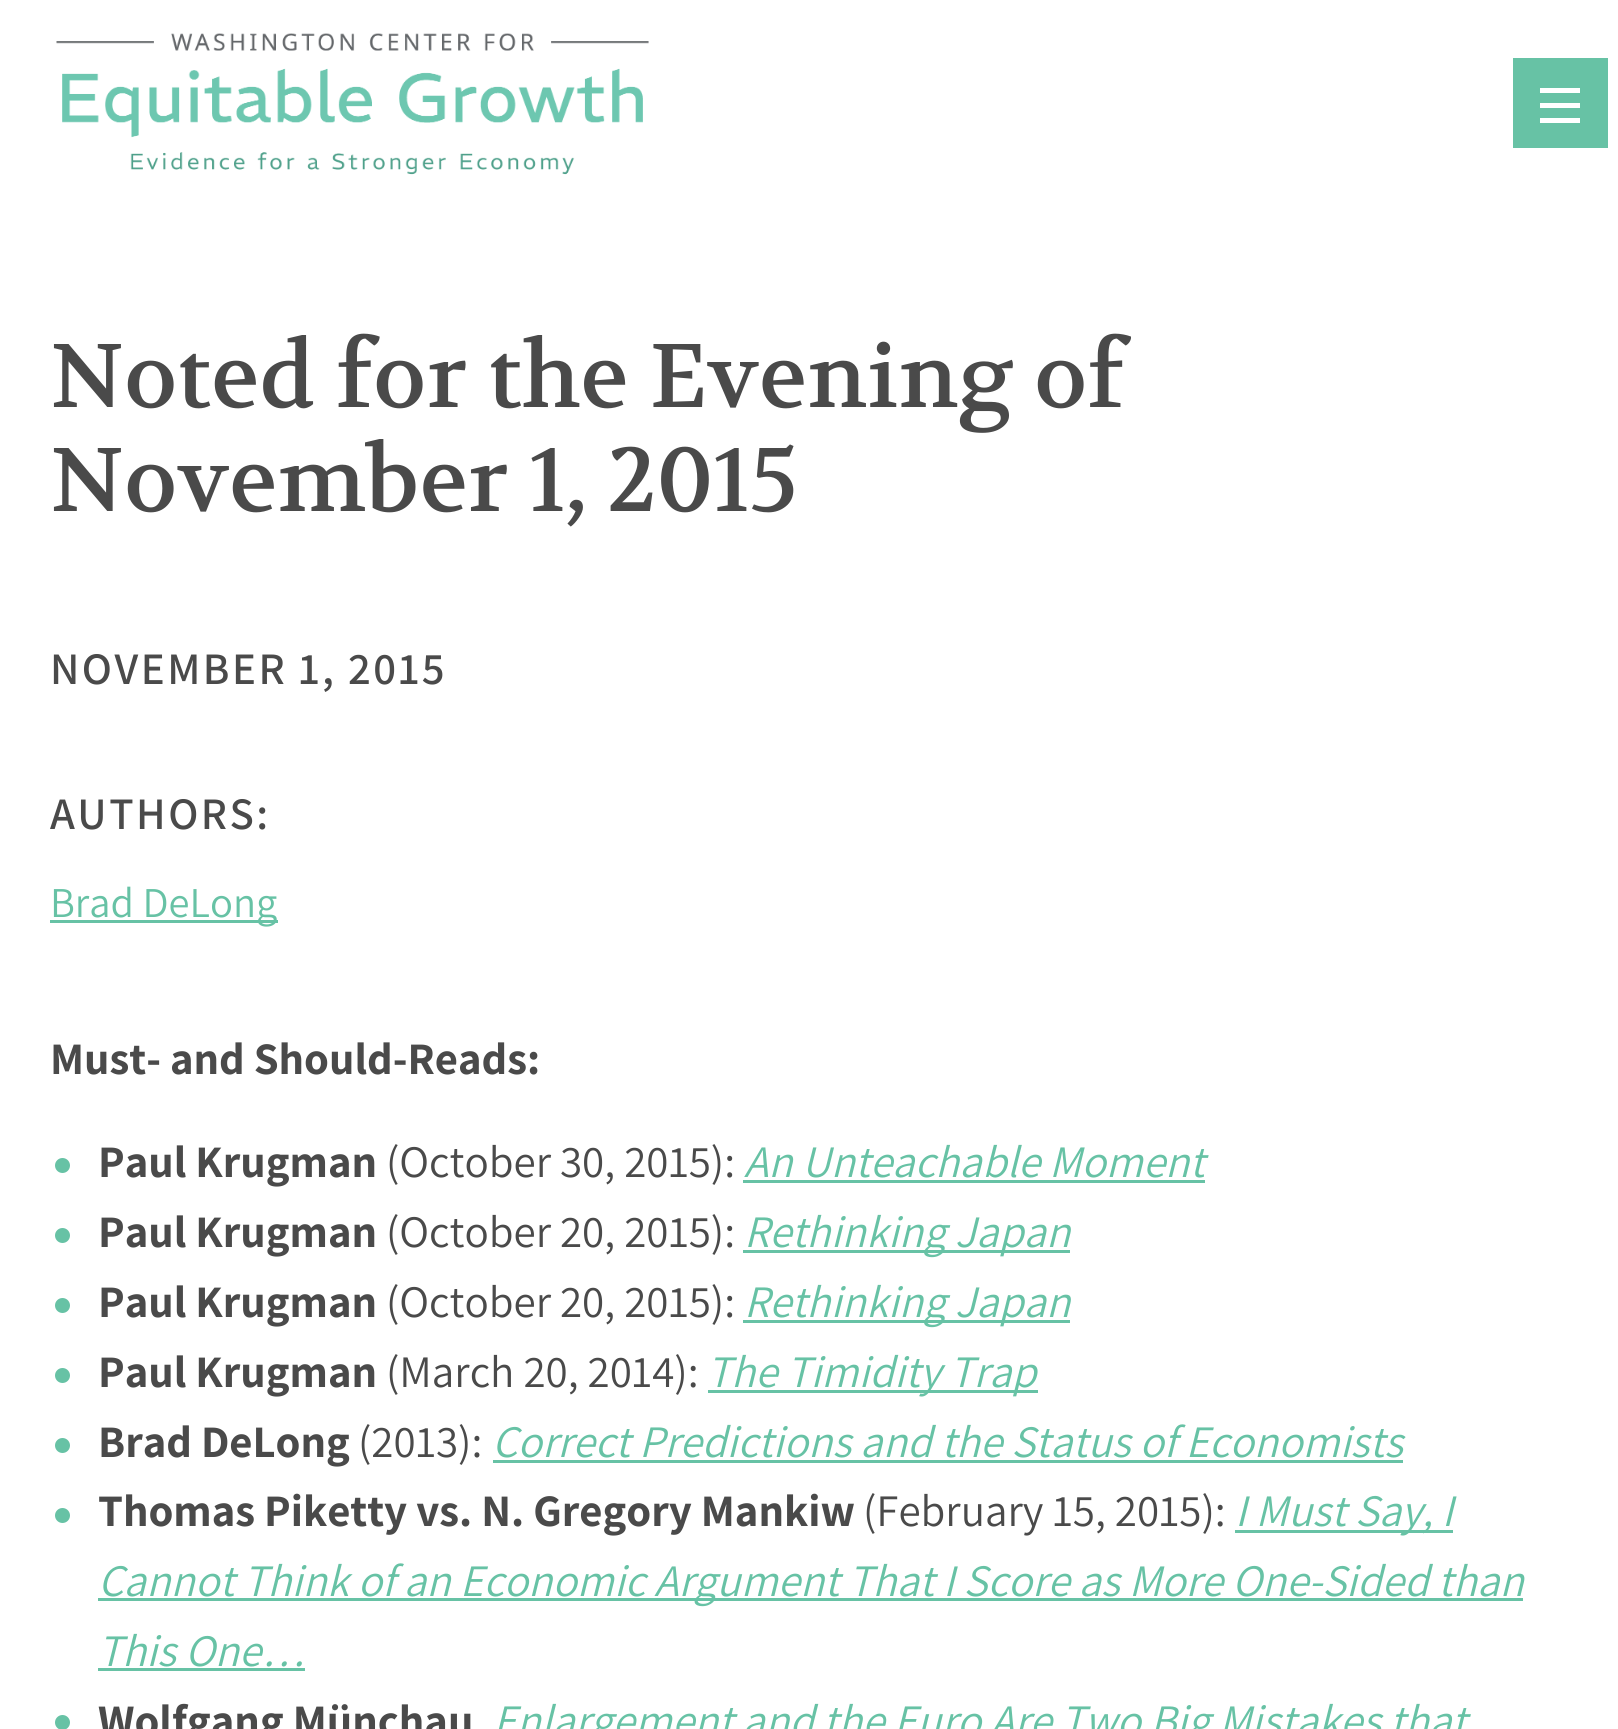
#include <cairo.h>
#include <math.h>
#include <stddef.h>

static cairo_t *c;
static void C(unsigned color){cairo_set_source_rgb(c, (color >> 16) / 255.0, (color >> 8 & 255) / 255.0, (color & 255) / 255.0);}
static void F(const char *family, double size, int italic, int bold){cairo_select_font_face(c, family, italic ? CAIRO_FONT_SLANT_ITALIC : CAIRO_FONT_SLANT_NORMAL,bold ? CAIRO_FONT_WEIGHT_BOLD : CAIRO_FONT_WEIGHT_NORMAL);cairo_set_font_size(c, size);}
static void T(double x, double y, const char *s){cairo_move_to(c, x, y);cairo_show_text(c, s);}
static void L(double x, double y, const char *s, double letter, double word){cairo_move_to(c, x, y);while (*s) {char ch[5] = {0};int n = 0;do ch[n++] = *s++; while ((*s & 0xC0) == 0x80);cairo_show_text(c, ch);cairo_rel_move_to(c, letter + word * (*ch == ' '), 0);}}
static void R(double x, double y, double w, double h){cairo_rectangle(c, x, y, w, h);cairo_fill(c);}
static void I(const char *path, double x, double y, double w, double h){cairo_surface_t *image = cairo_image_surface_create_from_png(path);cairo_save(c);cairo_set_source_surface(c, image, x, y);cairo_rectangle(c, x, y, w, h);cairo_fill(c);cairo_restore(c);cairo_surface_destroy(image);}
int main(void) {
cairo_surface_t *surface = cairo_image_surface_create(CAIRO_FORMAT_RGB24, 1618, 1729);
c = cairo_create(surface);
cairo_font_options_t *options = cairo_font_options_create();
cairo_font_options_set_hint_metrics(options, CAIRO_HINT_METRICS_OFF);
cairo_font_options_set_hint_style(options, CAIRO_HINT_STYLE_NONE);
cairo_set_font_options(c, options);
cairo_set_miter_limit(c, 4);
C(0xffffff);
cairo_paint(c);
I("1.png",56,33,593,142);
C(0x67c2a5);
R(1513,58,95,90);
C(0xffffff);
R(1540,88,40,5);
R(1540,103,40,5);
R(1540,118,40,5);
F("Volkhov",90,0,0);
C(0x4a4a4a);
T(50,407,"Noted for the Evening of");
T(50,511,"November 1, 2015");
F("Assistant SemiBold",45,0,0);
L(50,684,"NOVEMBER 1, 2015",2.5,0);
L(50,829,"AUTHORS:",2.5,0);
C(0x67c2a5);
R(50,920,228,3);
F("Assistant",42.5,0,0);
T(50,917,"Brad DeLong");
F("Assistant",45,0,1);
C(0x4a4a4a);
T(50,1074,"Must- and Should-Reads:");
C(0x67c2a5);
cairo_new_path(c);
cairo_arc(c,62.5,1165.5,7.5,0,2 * M_PI);
cairo_fill(c);
C(0x4a4a4a);
T(98,1177,"Paul Krugman");
F("Assistant",45,0,0);
T(386,1177,"(October 30, 2015):");
F("Assistant",45,1,0);
C(0x67c2a5);
T(744,1177,"An Unteachable Moment");
R(743,1180,462,3);
cairo_new_path(c);
cairo_arc(c,62.5,1235.5,7.5,0,2 * M_PI);
cairo_fill(c);
F("Assistant",45,0,1);
C(0x4a4a4a);
T(98,1247,"Paul Krugman");
F("Assistant",45,0,0);
T(386,1247,"(October 20, 2015):");
C(0x67c2a5);
R(743,1250,327,3);
F("Assistant",45,1,0);
T(744,1247,"Rethinking Japan");
cairo_new_path(c);
cairo_arc(c,62.5,1305.5,7.5,0,2 * M_PI);
cairo_fill(c);
F("Assistant",45,0,1);
C(0x4a4a4a);
T(98,1317,"Paul Krugman");
F("Assistant",45,0,0);
T(386,1317,"(October 20, 2015):");
C(0x67c2a5);
R(743,1320,327,3);
F("Assistant",45,1,0);
T(744,1317,"Rethinking Japan");
cairo_new_path(c);
cairo_arc(c,62.5,1375.5,7.5,0,2 * M_PI);
cairo_fill(c);
F("Assistant",45,0,1);
C(0x4a4a4a);
T(98,1387,"Paul Krugman");
F("Assistant",45,0,0);
T(386,1387,"(March 20, 2014):");
C(0x67c2a5);
R(708,1390,330,3);
F("Assistant",45,1,0);
T(707,1387,"The Timidity Trap");
cairo_new_path(c);
cairo_arc(c,62.5,1445.5,7.5,0,2 * M_PI);
cairo_fill(c);
F("Assistant",45,0,1);
C(0x4a4a4a);
T(98,1457,"Brad DeLong");
F("Assistant",45,0,0);
T(358,1457,"(2013):");
F("Assistant",45,1,0);
C(0x67c2a5);
T(492,1457,"Correct Predictions and the Status of Economists");
R(493,1460,910,3);
cairo_new_path(c);
cairo_arc(c,62.5,1515.5,7.5,0,2 * M_PI);
cairo_fill(c);
F("Assistant",45,0,1);
C(0x4a4a4a);
T(98,1526,"Thomas Piketty vs. N. Gregory Mankiw");
F("Assistant",45,0,0);
T(863,1526,"(February 15, 2015):");
C(0x67c2a5);
R(1235,1530,218,3);
F("Assistant",45,1,0);
T(1235,1526,"I Must Say, I");
R(98,1598,1425,3);
T(98,1596,"Cannot Think of an Economic Argument That I Score as More One-Sided than");
T(98,1666,"This One…");
R(98,1668,207,3);
cairo_new_path(c);
cairo_arc(c,62.5,1722.5,7.5,0,2 * M_PI);
cairo_fill(c);
F("Assistant",45,0,1);
C(0x4a4a4a);
T(98,1736,"Wolfgang Münchau");
F("Assistant",45,1,0);
C(0x67c2a5);
T(493,1736,"Enlargement and the Euro Are Two Big Mistakes that");
cairo_surface_write_to_png(surface, "o.png");
cairo_font_options_destroy(options);
cairo_destroy(c);
cairo_surface_destroy(surface);
return 0;
}
